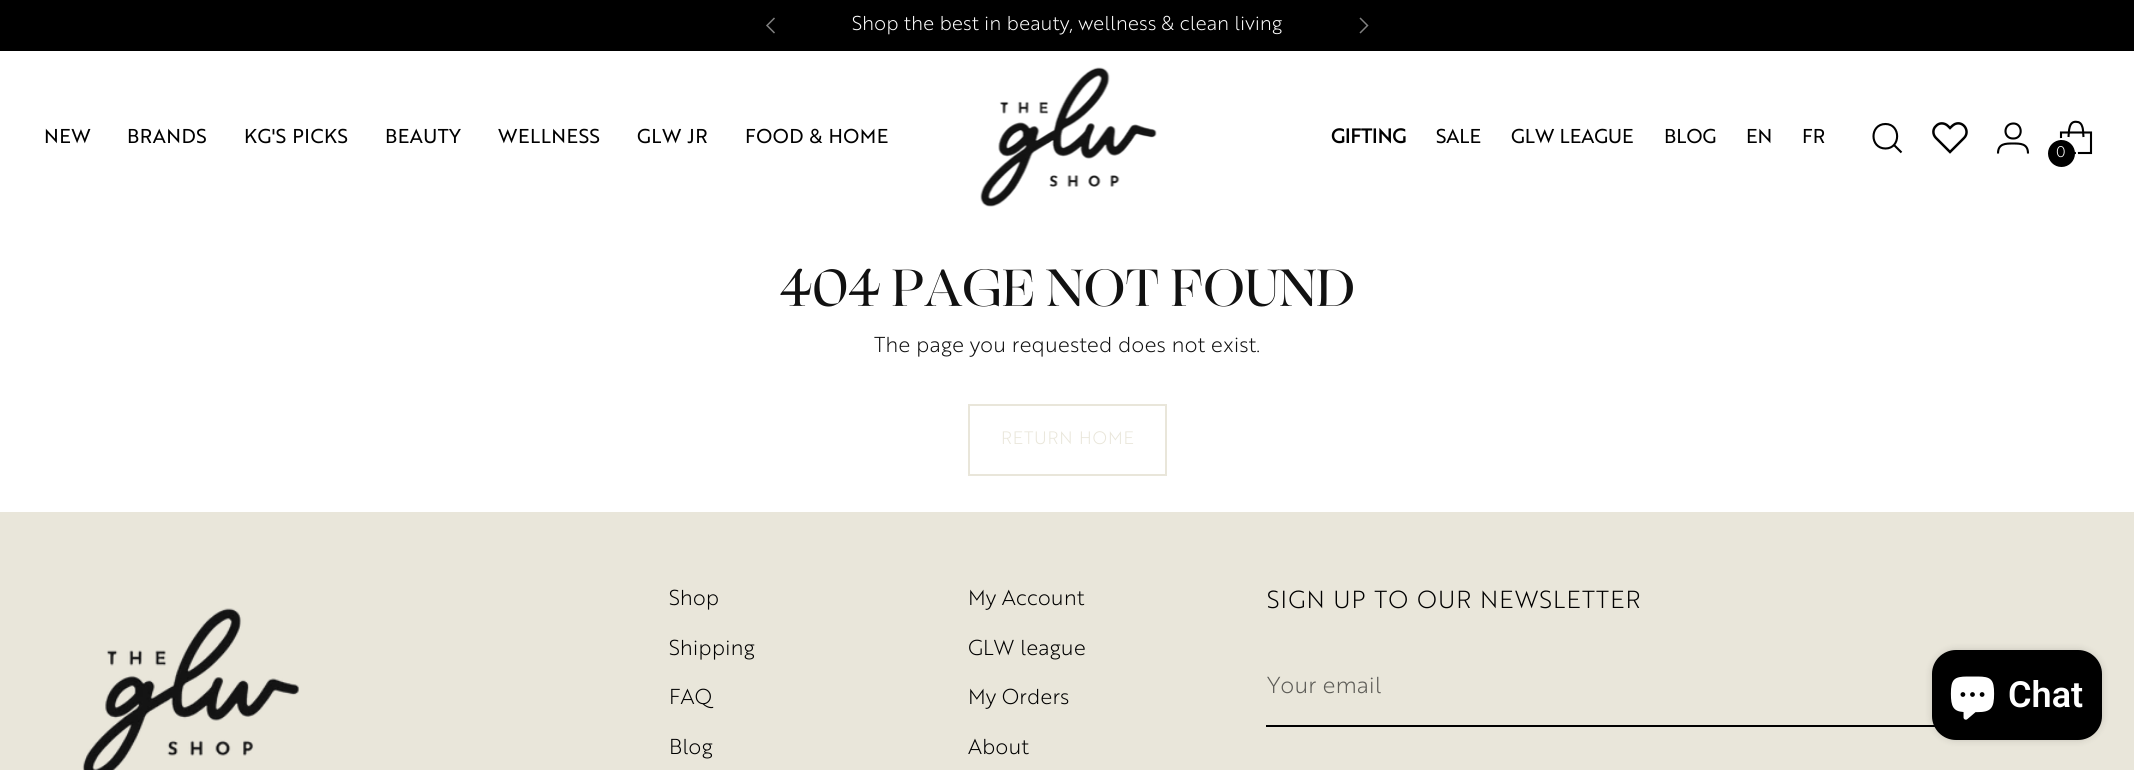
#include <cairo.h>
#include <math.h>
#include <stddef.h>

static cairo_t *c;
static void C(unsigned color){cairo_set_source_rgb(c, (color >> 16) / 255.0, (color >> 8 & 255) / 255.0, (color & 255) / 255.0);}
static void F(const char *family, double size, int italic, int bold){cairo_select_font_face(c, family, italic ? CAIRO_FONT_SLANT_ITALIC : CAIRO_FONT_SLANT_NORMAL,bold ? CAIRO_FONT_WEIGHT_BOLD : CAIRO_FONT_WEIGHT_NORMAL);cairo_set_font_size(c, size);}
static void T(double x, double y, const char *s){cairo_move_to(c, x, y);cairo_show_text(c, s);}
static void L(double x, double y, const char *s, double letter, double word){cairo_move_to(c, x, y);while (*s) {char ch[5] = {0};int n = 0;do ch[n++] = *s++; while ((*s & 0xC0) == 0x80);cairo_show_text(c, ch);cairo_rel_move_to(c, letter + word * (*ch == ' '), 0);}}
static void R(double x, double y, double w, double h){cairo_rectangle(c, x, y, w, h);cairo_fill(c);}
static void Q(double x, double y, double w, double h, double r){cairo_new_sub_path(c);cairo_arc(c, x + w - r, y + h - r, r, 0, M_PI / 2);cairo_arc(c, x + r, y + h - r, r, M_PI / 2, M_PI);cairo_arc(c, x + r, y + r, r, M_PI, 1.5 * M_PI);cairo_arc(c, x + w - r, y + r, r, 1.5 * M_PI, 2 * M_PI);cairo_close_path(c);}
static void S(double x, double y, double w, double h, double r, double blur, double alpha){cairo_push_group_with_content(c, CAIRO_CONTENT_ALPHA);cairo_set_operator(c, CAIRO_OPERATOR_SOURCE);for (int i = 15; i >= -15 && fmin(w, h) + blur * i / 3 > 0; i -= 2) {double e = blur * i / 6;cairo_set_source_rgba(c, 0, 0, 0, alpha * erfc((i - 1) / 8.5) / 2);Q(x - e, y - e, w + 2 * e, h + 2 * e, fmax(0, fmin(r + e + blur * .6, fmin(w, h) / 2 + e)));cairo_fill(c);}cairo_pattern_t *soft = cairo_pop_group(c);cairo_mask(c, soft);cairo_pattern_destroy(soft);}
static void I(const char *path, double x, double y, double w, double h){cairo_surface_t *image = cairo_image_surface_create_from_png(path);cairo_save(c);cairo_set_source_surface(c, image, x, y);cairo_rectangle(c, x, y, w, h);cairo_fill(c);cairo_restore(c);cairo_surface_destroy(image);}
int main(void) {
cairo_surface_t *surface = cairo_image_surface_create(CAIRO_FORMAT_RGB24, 2134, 770);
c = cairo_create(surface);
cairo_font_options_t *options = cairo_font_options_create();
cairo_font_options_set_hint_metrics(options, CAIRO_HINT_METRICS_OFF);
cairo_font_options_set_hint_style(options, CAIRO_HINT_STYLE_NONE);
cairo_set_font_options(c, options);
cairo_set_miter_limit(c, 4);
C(0xffffff);
cairo_paint(c);
C(0x000000);
R(0,0,2134,51);
F("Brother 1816 Light",19.5,0,0);
C(0xffffff);
T(852,30,"Shop the best in beauty, wellness & clean living");
cairo_new_path(c);
cairo_move_to(c,774.5,18);
cairo_line_to(c,767,25.5);
cairo_line_to(c,774.5,33);
C(0x808080);
cairo_set_line_width(c,1.5);
cairo_stroke(c);
cairo_new_path(c);
cairo_move_to(c,1360,33);
cairo_line_to(c,1367.5,25.5);
cairo_line_to(c,1360,18);
cairo_stroke(c);
F("Brother 1816",19.5,0,0);
C(0x000000);
L(44,143,"NEW",.5,0);
L(127,143,"BRANDS",.5,0);
L(244,143,"KG'S PICKS",.5,0);
L(385,143,"BEAUTY",.5,0);
L(498,143,"WELLNESS",.5,0);
L(637,143,"GLW JR",.5,0);
L(745,143,"FOOD & HOME",.5,0);
I("1.png",980,67,177,140);
F("Brother 1816",19.5,0,1);
T(1331,143,"GIFTING");
F("Brother 1816",19.5,0,0);
T(1436,143,"SALE");
T(1511,143,"GLW LEAGUE");
T(1664,143,"BLOG");
T(1746,143,"EN");
T(1802,143,"FR");
cairo_new_path(c);
cairo_move_to(c,1885.5,148.5);
cairo_curve_to(c,1901,148.5,1901,124,1885.5,124);
cairo_curve_to(c,1869.5,124,1869.5,148.5,1885.5,148.5);
cairo_close_path(c);
cairo_set_line_width(c,2.1);
cairo_set_line_cap(c,CAIRO_LINE_CAP_ROUND);
cairo_stroke(c);
cairo_new_path(c);
cairo_move_to(c,1894,145);
cairo_line_to(c,1901.5,152.5);
cairo_set_line_cap(c,CAIRO_LINE_CAP_BUTT);
cairo_stroke(c);
cairo_new_path(c);
cairo_move_to(c,1964,138);
cairo_line_to(c,1950,152);
cairo_line_to(c,1936,138);
cairo_curve_to(c,1932.5,134.5,1932.5,129,1936,126);
cairo_curve_to(c,1939,122.5,1944.5,122.5,1948,126);
cairo_line_to(c,1950,128);
cairo_curve_to(c,1951.5,126.5,1953,125,1955,124);
cairo_curve_to(c,1963.5,120.5,1970.5,131.5,1964,138);
cairo_close_path(c);
cairo_set_line_width(c,2.5);
cairo_stroke(c);
cairo_new_path(c);
cairo_move_to(c,2013,138.5);
cairo_curve_to(c,2023.5,139,2023,123,2013,123.5);
cairo_curve_to(c,2003,124,2003,138.5,2013,138.5);
cairo_close_path(c);
cairo_move_to(c,1998,153.5);
cairo_curve_to(c,1998,143.5,2005.5,143.5,2013,143.5);
cairo_curve_to(c,2020.5,143.5,2028,143.5,2028,153.5);
cairo_set_line_width(c,2.1);
cairo_stroke(c);
cairo_new_path(c);
cairo_move_to(c,2083.5,137);
cairo_curve_to(c,2083,133.5,2083.5,129.5,2082,126);
cairo_curve_to(c,2081.5,124,2079.5,122,2077.5,122);
cairo_curve_to(c,2068.5,120,2069,131.5,2068.5,137);
cairo_set_line_join(c,CAIRO_LINE_JOIN_BEVEL);
cairo_stroke(c);
cairo_new_path(c);
cairo_move_to(c,2091,153);
cairo_line_to(c,2091,132.5);
cairo_line_to(c,2061,132.5);
cairo_line_to(c,2061,153);
cairo_close_path(c);
cairo_set_line_join(c,CAIRO_LINE_JOIN_MITER);
cairo_stroke(c);
cairo_arc(c,2062,154,15,0,2 * M_PI);
C(0xffffff);
cairo_set_line_width(c,2);
cairo_stroke(c);
C(0x000000);
cairo_arc(c,2061.5,153.5,13.5,0,2 * M_PI);
cairo_fill(c);
F("Brother 1816 Light",15,0,0);
C(0xffffff);
T(2056,157,"0");
F("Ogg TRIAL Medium",52.5,0,0);
C(0x111111);
T(780,306,"404 PAGE NOT FOUND");
F("Brother 1816 Light",21,0,0);
T(874,352,"The page you requested does not exist.");
cairo_rectangle(c,969,405,197,70);
C(0xe9e6da);
cairo_stroke(c);
F("Brother 1816 Light",17.5,0,0);
L(1001,444,"RETURN HOME",.9,0);
R(0,512,2134,258);
I("2.png",82,608,218,162);
F("Brother 1816 Light",21,0,0);
C(0x000000);
T(669,605,"Shop");
T(669,655,"Shipping");
T(669,704,"FAQ");
T(669,754,"Blog");
T(968,605,"My Account");
T(968,655,"GLW league");
T(968,704,"My Orders");
T(968,754,"About");
F("Brother 1816 Light",24,0,0);
L(1267,608,"SIGN UP TO OUR NEWSLETTER",1.2,0);
R(1266,725,669,2);
F("Brother 1816 Light",22.5,0,0);
C(0x5d5c57);
T(1267,693,"Your email");
C(0x000000);
S(1932,650,170,90,24,4,.15);
C(0x000000);
Q(1932,650,170,90,24);
cairo_fill(c);
I("3.png",1950,676,45,44);
F("Roboto SemiBold",36,0,0);
C(0xffffff);
T(2008,707,"Chat");
cairo_surface_write_to_png(surface, "o.png");
cairo_font_options_destroy(options);
cairo_destroy(c);
cairo_surface_destroy(surface);
return 0;
}
